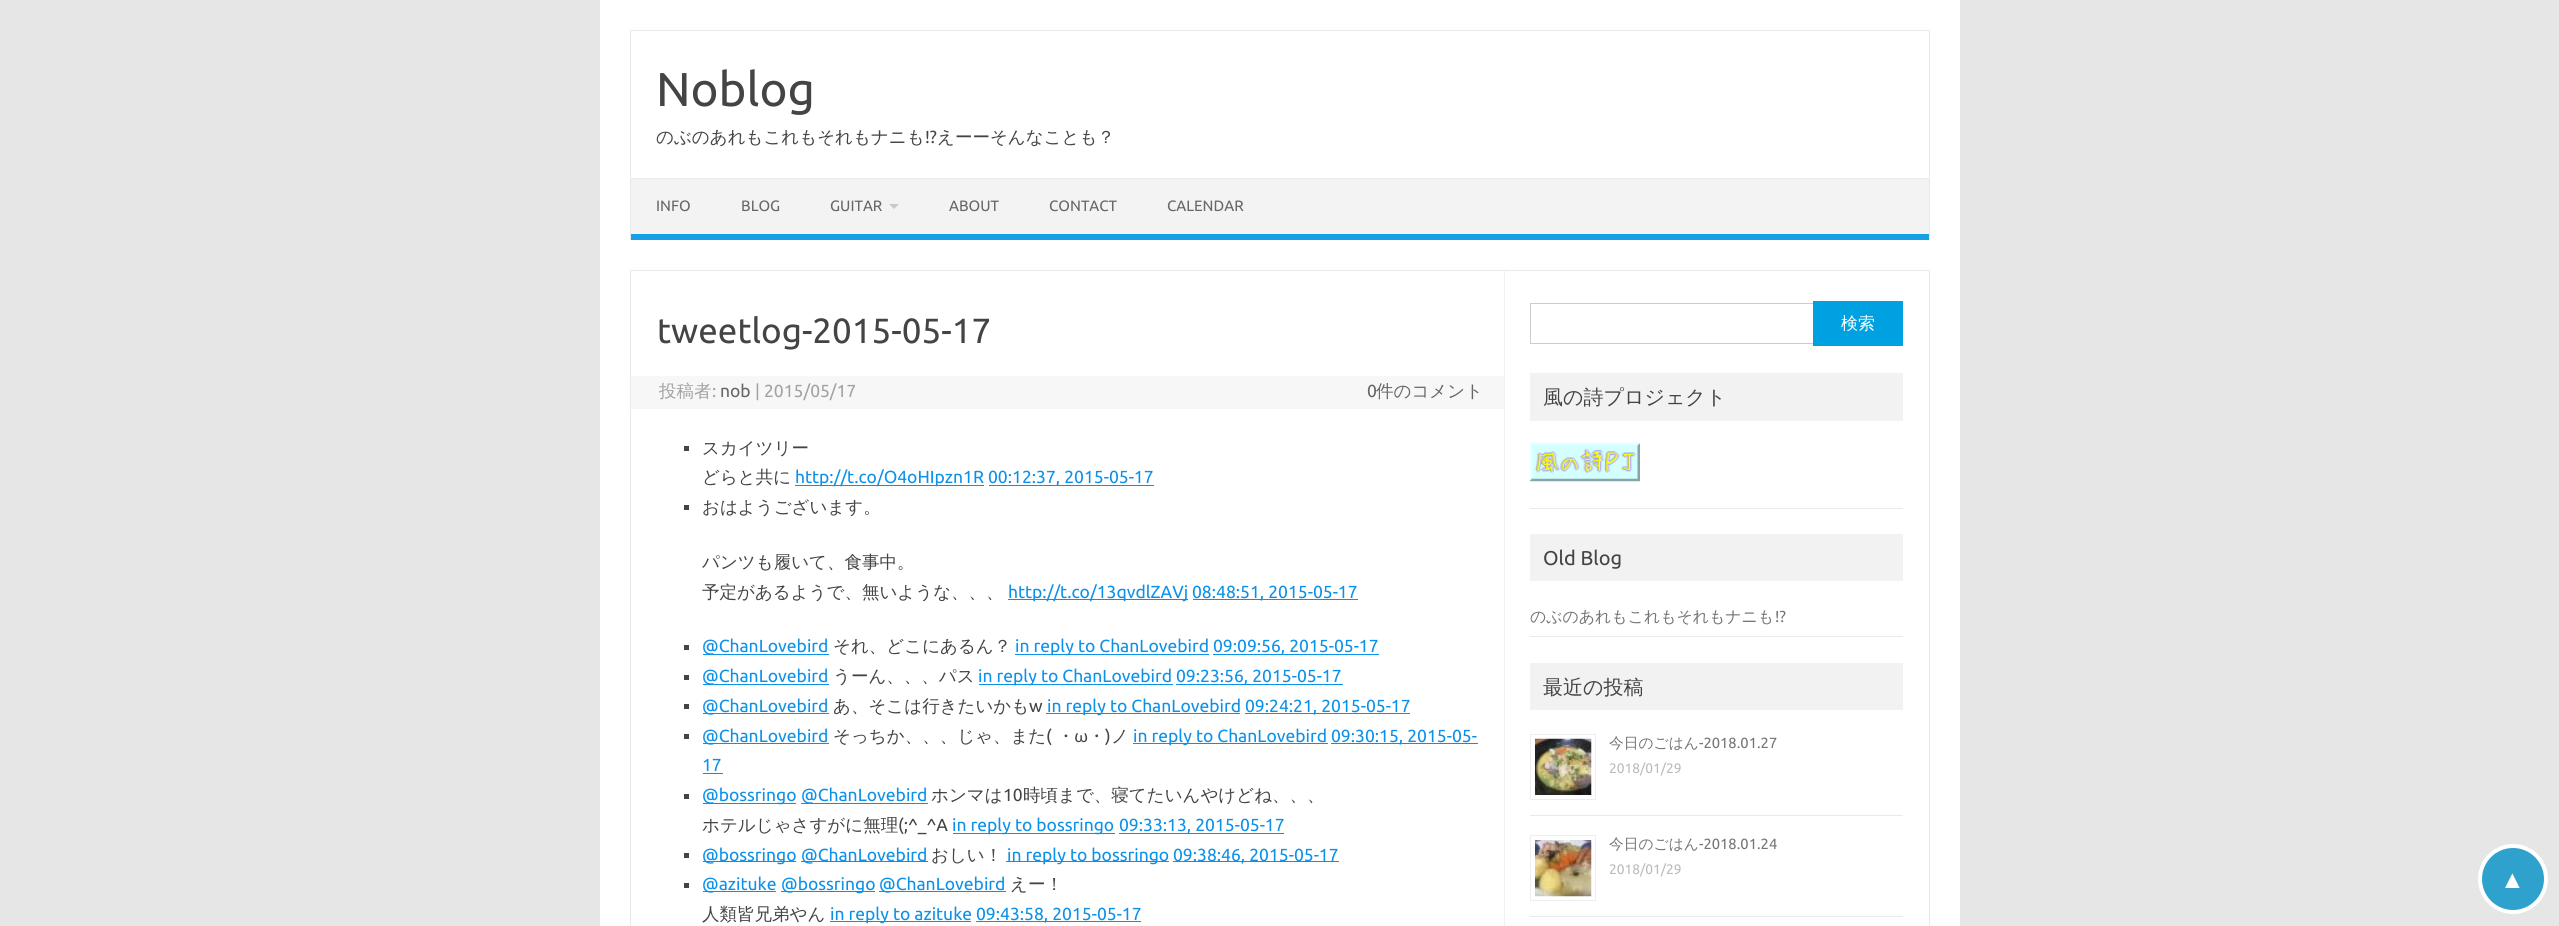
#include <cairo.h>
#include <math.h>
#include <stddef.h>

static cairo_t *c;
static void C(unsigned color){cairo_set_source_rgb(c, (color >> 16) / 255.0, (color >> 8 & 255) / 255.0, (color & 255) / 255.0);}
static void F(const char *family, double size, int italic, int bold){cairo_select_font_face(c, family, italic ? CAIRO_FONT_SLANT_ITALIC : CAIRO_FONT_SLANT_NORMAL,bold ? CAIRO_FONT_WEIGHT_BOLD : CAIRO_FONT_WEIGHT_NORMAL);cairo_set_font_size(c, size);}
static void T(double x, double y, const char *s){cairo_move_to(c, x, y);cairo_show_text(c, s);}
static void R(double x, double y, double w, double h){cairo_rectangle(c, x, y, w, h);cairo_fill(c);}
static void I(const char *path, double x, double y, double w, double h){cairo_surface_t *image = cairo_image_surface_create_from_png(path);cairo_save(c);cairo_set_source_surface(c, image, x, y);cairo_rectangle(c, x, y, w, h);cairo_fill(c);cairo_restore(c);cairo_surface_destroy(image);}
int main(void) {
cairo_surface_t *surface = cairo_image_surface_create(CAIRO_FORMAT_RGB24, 2559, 926);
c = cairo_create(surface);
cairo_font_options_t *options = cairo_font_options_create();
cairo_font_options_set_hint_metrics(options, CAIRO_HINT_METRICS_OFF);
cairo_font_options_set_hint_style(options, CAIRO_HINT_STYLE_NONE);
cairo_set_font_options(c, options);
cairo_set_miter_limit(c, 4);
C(0xe6e6e6);
cairo_paint(c);
C(0xffffff);
R(600,0,1360,926);
C(0xe9e9e9);
R(630,30,1300,1);
R(1929,30,1,210);
R(630,30,1,210);
F("Ubuntu",47.5,0,0);
C(0x444444);
T(656,106,"Noblog");
F("WenQuanYi Zen Hei Medium",17.5,0,0);
T(656,143,"のぶのあれもこれもそれもナニも");
F("Ubuntu",17.5,0,0);
T(925,143,"!?");
F("WenQuanYi Zen Hei Medium",17.5,0,0);
T(937,143,"えーーそんなことも？");
C(0xf3f3f3);
R(631,179,1298,55);
C(0xededed);
R(631,178,1298,1);
C(0x16a1e7);
R(631,234,1298,6);
F("Ubuntu",15,0,0);
C(0x666666);
T(656,211,"INFO");
T(741,211,"BLOG");
T(830,211,"GUITAR");
C(0xc9c9c9);
cairo_new_path(c);
cairo_move_to(c,889,204);
cairo_line_to(c,899,204);
cairo_line_to(c,894,209);
cairo_close_path(c);
cairo_fill(c);
C(0x666666);
T(949,211,"ABOUT");
T(1049,211,"CONTACT");
T(1167,211,"CALENDAR");
cairo_rectangle(c,630.5,270.5,1299,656);
C(0xe9e9e9);
cairo_set_line_width(c,1);
cairo_stroke(c);
C(0xf1f1f1);
R(1504,271,1,655);
F("Ubuntu",35,0,0);
C(0x444444);
T(657,343,"tweetlog-2015-05-17");
C(0xf7f7f7);
R(631,376,873,33);
F("WenQuanYi Zen Hei Medium",17.5,0,0);
C(0xa2a2a2);
T(659,397,"投稿者");
F("Ubuntu",17.5,0,0);
T(712,397,":");
C(0x666666);
T(720,397,"nob");
C(0xa2a2a2);
T(755,397,"| 2015/05/17");
C(0x666666);
T(1367,397,"0");
F("WenQuanYi Zen Hei Medium",17.5,0,0);
T(1376,397,"件のコメント");
C(0x444444);
R(684,446,5,5);
T(702,454,"スカイツリー");
T(702,483,"どらと共に");
C(0x0b91ea);
R(795,485,189,1);
F("Ubuntu",17.5,0,0);
T(795,483,"http://t.co/O4oHIpzn1R");
R(989,485,165,1);
T(988,483,"00:12:37, 2015-05-17");
C(0x444444);
R(684,505,5,5);
F("WenQuanYi Zen Hei Medium",17.5,0,0);
T(702,513,"おはようございます。");
T(702,568,"パンツも履いて、食事中。");
T(702,598,"予定があるようで、無いような、、、");
C(0x0b91ea);
R(1008,599,180,1);
F("Ubuntu",17.5,0,0);
T(1008,598,"http://t.co/13qvdlZAVj");
R(1193,599,165,1);
T(1192,598,"08:48:51, 2015-05-17");
C(0x444444);
R(684,645,5,5);
C(0x0b91ea);
R(703,654,126,1);
T(702,652,"@ChanLovebird");
F("WenQuanYi Zen Hei Medium",17.5,0,0);
C(0x444444);
T(833,652,"それ、どこにあるん？");
C(0x0b91ea);
R(1015,654,194,1);
F("Ubuntu",17.5,0,0);
T(1015,652,"in reply to ChanLovebird");
R(1213,654,166,1);
T(1213,652,"09:09:56, 2015-05-17");
C(0x444444);
R(684,675,5,5);
C(0x0b91ea);
R(703,684,126,1);
T(702,682,"@ChanLovebird");
F("WenQuanYi Zen Hei Medium",17.5,0,0);
C(0x444444);
T(833,682,"うーん、、、パス");
C(0x0b91ea);
R(979,684,194,1);
F("Ubuntu",17.5,0,0);
T(978,682,"in reply to ChanLovebird");
R(1176,684,167,1);
T(1176,682,"09:23:56, 2015-05-17");
C(0x444444);
R(684,704,5,5);
C(0x0b91ea);
R(703,713,126,1);
T(702,712,"@ChanLovebird");
F("WenQuanYi Zen Hei Medium",17.5,0,0);
C(0x444444);
T(833,712,"あ、そこは行きたいかも");
F("Ubuntu",17.5,0,0);
T(1029,712,"w");
C(0x0b91ea);
R(1046,713,194,1);
T(1047,712,"in reply to ChanLovebird");
R(1245,713,165,1);
T(1245,712,"09:24:21, 2015-05-17");
C(0x444444);
R(684,734,5,5);
C(0x0b91ea);
R(703,743,126,1);
T(702,742,"@ChanLovebird");
F("WenQuanYi Zen Hei Medium",17.5,0,0);
C(0x444444);
T(833,742,"そっちか、、、じゃ、また");
F("Ubuntu",17.5,0,0);
T(1046,742,"(");
F("WenQuanYi Zen Hei Medium",17.5,0,0);
T(1057,742,"・ω・");
F("Ubuntu",17.5,0,0);
T(1105,742,")");
F("WenQuanYi Zen Hei Medium",17.5,0,0);
T(1111,742,"ノ");
C(0x0b91ea);
R(1133,743,195,1);
F("Ubuntu",17.5,0,0);
T(1133,742,"in reply to ChanLovebird");
R(1331,743,147,1);
T(1331,742,"09:30:15, 2015-05-");
T(702,771,"17");
R(703,773,20,1);
C(0x444444);
R(684,794,5,5);
C(0x0b91ea);
R(703,803,93,1);
T(702,801,"@bossringo");
R(801,803,127,1);
T(801,801,"@ChanLovebird");
F("WenQuanYi Zen Hei Medium",17.5,0,0);
C(0x444444);
T(931,801,"ホンマは");
F("Ubuntu",17.5,0,0);
T(1003,801,"10");
F("WenQuanYi Zen Hei Medium",17.5,0,0);
T(1023,801,"時頃まで、寝てたいんやけどね、、、");
T(702,831,"ホテルじゃさすがに無理");
F("Ubuntu",17.5,0,0);
T(898,831,"(;^_^A");
C(0x0b91ea);
R(953,833,162,1);
T(952,831,"in reply to bossringo");
R(1119,833,165,1);
T(1119,831,"09:33:13, 2015-05-17");
C(0x444444);
R(684,853,5,5);
C(0x0b91ea);
R(703,861,93,1);
T(702,861,"@bossringo");
R(801,861,127,1);
T(801,861,"@ChanLovebird");
F("WenQuanYi Zen Hei Medium",17.5,0,0);
C(0x444444);
T(931,861,"おしい！");
C(0x0b91ea);
R(1006,861,163,1);
F("Ubuntu",17.5,0,0);
T(1007,861,"in reply to bossringo");
R(1173,861,166,1);
T(1173,861,"09:38:46, 2015-05-17");
C(0x444444);
R(684,883,5,5);
C(0x0b91ea);
R(703,891,73,1);
T(702,890,"@azituke");
R(781,891,94,1);
T(781,890,"@bossringo");
R(879,891,127,1);
T(879,890,"@ChanLovebird");
F("WenQuanYi Zen Hei Medium",17.5,0,0);
C(0x444444);
T(1010,890,"えー！");
T(702,920,"人類皆兄弟やん");
C(0x0b91ea);
R(830,921,141,1);
F("Ubuntu",17.5,0,0);
T(830,920,"in reply to azituke");
R(976,921,165,1);
T(976,920,"09:43:58, 2015-05-17");
cairo_rectangle(c,1530.5,303.5,284,40);
C(0xcccccc);
cairo_stroke(c);
C(0x00a1e0);
R(1813,301,90,45);
F("WenQuanYi Zen Hei Medium",17,0,0);
C(0xffffff);
T(1841,329,"検索");
C(0xf2f2f2);
R(1530,373,373,48);
F("WenQuanYi Zen Hei Medium",20,0,0);
C(0x444444);
T(1543,404,"風の詩プロジェクト");
C(0xe9e9e9);
R(1530,508,373,1);
I("1.png",1530,442,110,40);
C(0xf2f2f2);
R(1530,534,373,47);
F("Ubuntu",20,0,0);
C(0x444444);
T(1543,565,"Old Blog");
C(0xe9e9e9);
R(1530,636,373,1);
F("WenQuanYi Zen Hei Medium",15.9,0,0);
C(0x757575);
T(1530,622,"のぶのあれもこれもそれもナニも");
F("Ubuntu",15.9,0,0);
T(1775,622,"!?");
C(0xf2f2f2);
R(1530,663,373,47);
F("WenQuanYi Zen Hei Medium",20,0,0);
C(0x444444);
T(1543,694,"最近の投稿");
C(0xe9e9e9);
R(1530,815,373,1);
cairo_rectangle(c,1530.5,734.5,65,65);
C(0xeeeeee);
cairo_stroke(c);
I("2.png",1535,738,57,57);
F("WenQuanYi Zen Hei Medium",14.75,0,0);
C(0x757575);
T(1609,748,"今日のごはん");
F("Ubuntu",14.75,0,0);
T(1699,748,"-2018.01.27");
F("Ubuntu",13.75,0,0);
C(0xbbbbbb);
T(1609,773,"2018/01/29");
C(0xe9e9e9);
R(1530,916,373,1);
cairo_rectangle(c,1530.5,835.5,65,65);
C(0xeeeeee);
cairo_stroke(c);
I("3.png",1535,840,57,57);
F("WenQuanYi Zen Hei Medium",14.75,0,0);
C(0x757575);
T(1609,849,"今日のごはん");
F("Ubuntu",14.75,0,0);
T(1699,849,"-2018.01.24");
F("Ubuntu",13.75,0,0);
C(0xbbbbbb);
T(1609,874,"2018/01/29");
C(0x2ea2cc);
cairo_new_path(c);
cairo_arc(c,2513,879,33,0,2 * M_PI);
cairo_fill_preserve(c);
C(0xffffff);
cairo_set_line_width(c,4);
cairo_stroke(c);
F("Liberation Sans",25,0,0);
T(2500,888,"▲");
cairo_surface_write_to_png(surface, "o.png");
cairo_font_options_destroy(options);
cairo_destroy(c);
cairo_surface_destroy(surface);
return 0;
}
